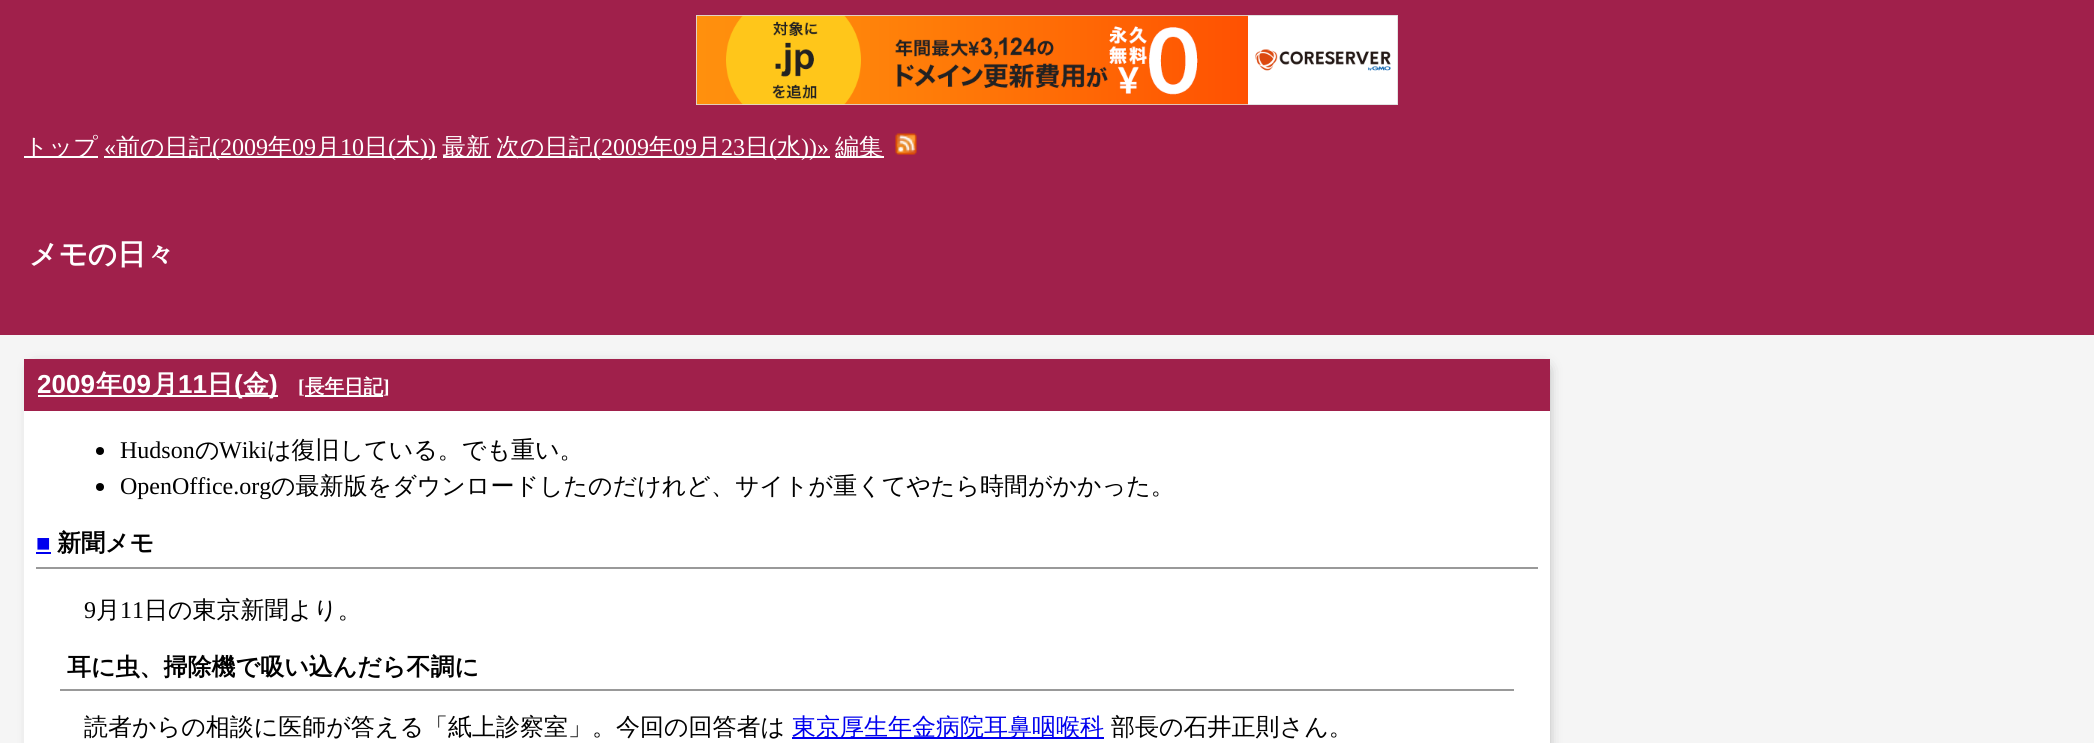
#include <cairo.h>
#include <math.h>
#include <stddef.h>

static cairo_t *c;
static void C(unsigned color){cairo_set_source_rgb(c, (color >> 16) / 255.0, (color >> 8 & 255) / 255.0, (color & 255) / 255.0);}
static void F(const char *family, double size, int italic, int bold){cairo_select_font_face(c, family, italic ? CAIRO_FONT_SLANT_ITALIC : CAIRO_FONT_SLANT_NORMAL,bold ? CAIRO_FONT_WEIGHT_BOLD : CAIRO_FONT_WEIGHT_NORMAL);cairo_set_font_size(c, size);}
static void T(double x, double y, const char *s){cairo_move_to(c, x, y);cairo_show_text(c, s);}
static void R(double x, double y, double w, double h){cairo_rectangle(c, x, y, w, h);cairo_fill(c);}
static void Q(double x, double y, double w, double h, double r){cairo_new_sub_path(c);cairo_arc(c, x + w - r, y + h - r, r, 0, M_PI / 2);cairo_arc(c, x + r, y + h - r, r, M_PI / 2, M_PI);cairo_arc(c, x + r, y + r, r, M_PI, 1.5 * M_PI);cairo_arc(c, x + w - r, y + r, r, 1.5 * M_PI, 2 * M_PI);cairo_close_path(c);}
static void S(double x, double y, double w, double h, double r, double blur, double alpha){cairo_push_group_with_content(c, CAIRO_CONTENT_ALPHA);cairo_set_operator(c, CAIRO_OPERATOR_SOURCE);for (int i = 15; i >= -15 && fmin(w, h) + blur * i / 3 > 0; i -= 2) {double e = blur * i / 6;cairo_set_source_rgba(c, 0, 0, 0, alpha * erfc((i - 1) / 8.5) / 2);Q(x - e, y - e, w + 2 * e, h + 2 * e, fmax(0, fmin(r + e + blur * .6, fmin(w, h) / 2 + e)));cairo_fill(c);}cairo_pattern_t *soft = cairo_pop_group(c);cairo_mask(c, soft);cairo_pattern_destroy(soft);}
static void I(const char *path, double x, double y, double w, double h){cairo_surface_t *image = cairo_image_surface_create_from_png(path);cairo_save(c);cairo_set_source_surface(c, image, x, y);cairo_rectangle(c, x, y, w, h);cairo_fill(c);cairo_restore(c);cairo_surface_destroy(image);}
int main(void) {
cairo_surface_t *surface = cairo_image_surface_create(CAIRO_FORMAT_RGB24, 2094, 743);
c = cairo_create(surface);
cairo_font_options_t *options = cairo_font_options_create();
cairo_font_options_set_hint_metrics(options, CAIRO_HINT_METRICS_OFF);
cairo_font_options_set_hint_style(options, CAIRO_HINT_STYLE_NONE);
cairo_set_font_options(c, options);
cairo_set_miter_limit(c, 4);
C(0xf5f5f5);
cairo_paint(c);
C(0xa0204b);
R(0,0,2094,335);
I("1.png",696,15,702,90);
C(0xffffff);
R(24,156,74,2);
F("WenQuanYi Zen Hei Medium",24,0,0);
T(24,155,"トップ");
F("Liberation Serif",24,0,0);
T(104,155,"«");
R(104,156,333,2);
F("WenQuanYi Zen Hei Medium",24,0,0);
T(116,155,"前の日記");
F("Liberation Serif",24,0,0);
T(212,155,"(2009");
F("WenQuanYi Zen Hei Medium",24,0,0);
T(268,155,"年");
F("Liberation Serif",24,0,0);
T(292,155,"09");
F("WenQuanYi Zen Hei Medium",24,0,0);
T(316,155,"月");
F("Liberation Serif",24,0,0);
T(340,155,"10");
F("WenQuanYi Zen Hei Medium",24,0,0);
T(364,155,"日");
F("Liberation Serif",24,0,0);
T(388,155,"(");
F("WenQuanYi Zen Hei Medium",24,0,0);
T(396,155,"木");
F("Liberation Serif",24,0,0);
T(420,155,"))");
R(443,156,48,2);
F("WenQuanYi Zen Hei Medium",24,0,0);
T(442,155,"最新");
R(497,156,333,2);
T(496,155,"次の日記");
F("Liberation Serif",24,0,0);
T(593,155,"(2009");
F("WenQuanYi Zen Hei Medium",24,0,0);
T(649,155,"年");
F("Liberation Serif",24,0,0);
T(673,155,"09");
F("WenQuanYi Zen Hei Medium",24,0,0);
T(697,155,"月");
F("Liberation Serif",24,0,0);
T(721,155,"23");
F("WenQuanYi Zen Hei Medium",24,0,0);
T(745,155,"日");
F("Liberation Serif",24,0,0);
T(769,155,"(");
F("WenQuanYi Zen Hei Medium",24,0,0);
T(777,155,"水");
F("Liberation Serif",24,0,0);
T(801,155,"))»");
R(836,156,48,2);
F("WenQuanYi Zen Hei Medium",24,0,0);
T(835,155,"編集");
I("2.png",895,133,22,22);
F("WenQuanYi Zen Hei",28.75,0,1);
T(29,264,"メモの日々");
C(0x808080);
S(35,369,1510,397,0,7.5,1);
C(0xffffff);
R(24,411,1526,332);
C(0xa0204b);
R(24,359,1526,52);
F("Liberation Sans",26,0,1);
C(0xffffff);
T(37,393,"2009");
R(38,395,240,2);
F("WenQuanYi Zen Hei",26,0,1);
T(96,393,"年");
F("Liberation Sans",26,0,1);
T(122,393,"09");
F("WenQuanYi Zen Hei",26,0,1);
T(152,393,"月");
F("Liberation Sans",26,0,1);
T(178,393,"11");
F("WenQuanYi Zen Hei",26,0,1);
T(207,393,"日");
F("Liberation Sans",26,0,1);
T(234,393,"(");
F("WenQuanYi Zen Hei",26,0,1);
T(243,393,"金");
F("Liberation Sans",26,0,1);
T(269,393,")");
F("Liberation Serif",19.5,0,1);
T(298,393,"[");
R(305,395,78,2);
F("WenQuanYi Zen Hei",19.5,0,1);
T(305,393,"長年日記");
F("Liberation Serif",19.5,0,1);
T(383,393,"]");
C(0x000000);
cairo_new_path(c);
cairo_arc(c,100,451,4,0,2 * M_PI);
cairo_fill(c);
F("Liberation Serif",24,0,0);
T(120,458,"Hudson");
F("WenQuanYi Zen Hei Medium",24,0,0);
T(195,458,"の");
F("Liberation Serif",24,0,0);
T(219,458,"Wiki");
F("WenQuanYi Zen Hei Medium",24,0,0);
T(267,458,"は復旧している。でも重い。");
cairo_new_path(c);
cairo_arc(c,100,487,4,0,2 * M_PI);
cairo_fill(c);
F("Liberation Serif",24,0,0);
T(120,494,"OpenOffice.org");
F("WenQuanYi Zen Hei Medium",24,0,0);
T(271,494,"の最新版をダウンロードしたのだけれど、サイトが重くてやたら時間がかかった。");
C(0x999999);
R(36,567,1502,2);
F("Liberation Serif",24,0,1);
C(0x0000ee);
T(36,551,"■");
R(36,552,15,2);
F("WenQuanYi Zen Hei",24,0,1);
C(0x000000);
T(57,551,"新聞メモ");
F("Liberation Serif",24,0,0);
T(84,618,"9");
F("WenQuanYi Zen Hei Medium",24,0,0);
T(96,618,"月");
F("Liberation Serif",24,0,0);
T(120,618,"11");
F("WenQuanYi Zen Hei Medium",24,0,0);
T(144,618,"日の東京新聞より。");
C(0x999999);
R(60,689,1454,2);
F("WenQuanYi Zen Hei",24,0,1);
C(0x000000);
T(67,675,"耳に虫、掃除機で吸い込んだら不調に");
F("WenQuanYi Zen Hei Medium",24,0,0);
T(84,735,"読者からの相談に医師が答える「紙上診察室」。今回の回答者は");
C(0x0000ee);
R(792,737,312,2);
T(792,735,"東京厚生年金病院耳鼻咽喉科");
C(0x000000);
T(1111,735,"部長の石井正則さん。");
cairo_surface_write_to_png(surface, "o.png");
cairo_font_options_destroy(options);
cairo_destroy(c);
cairo_surface_destroy(surface);
return 0;
}
